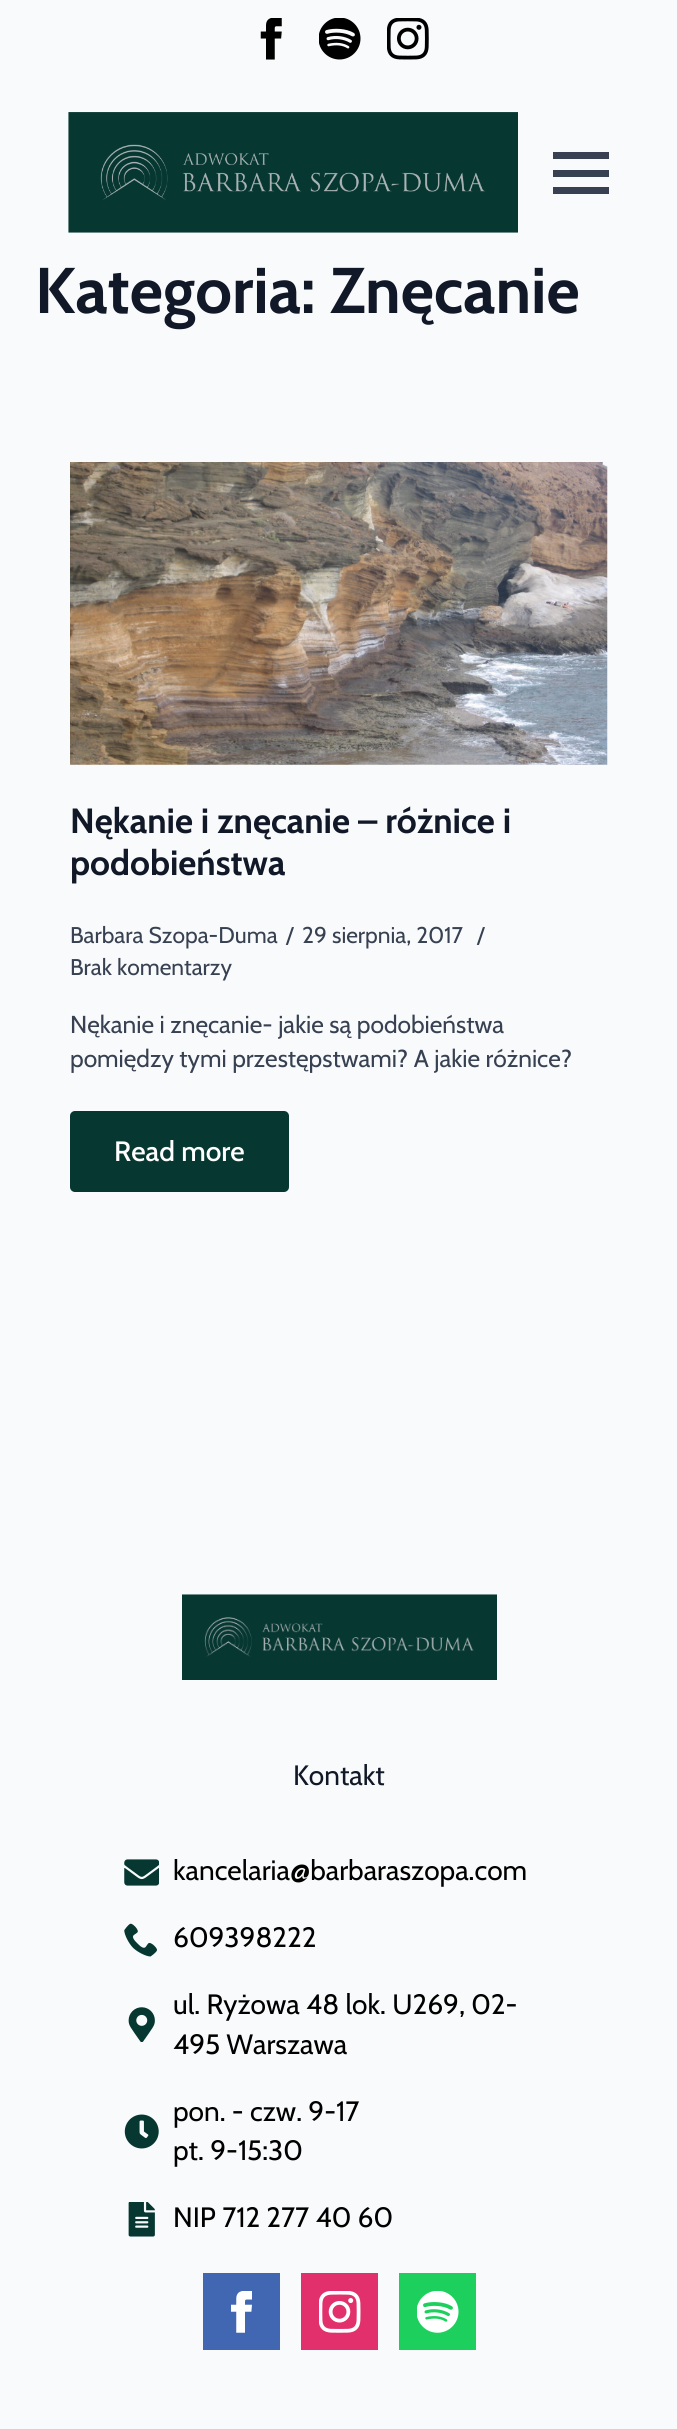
#include <cairo.h>
#include <math.h>
#include <stddef.h>

static cairo_t *c;
static void C(unsigned color){cairo_set_source_rgb(c, (color >> 16) / 255.0, (color >> 8 & 255) / 255.0, (color & 255) / 255.0);}
static void F(const char *family, double size, int italic, int bold){cairo_select_font_face(c, family, italic ? CAIRO_FONT_SLANT_ITALIC : CAIRO_FONT_SLANT_NORMAL,bold ? CAIRO_FONT_WEIGHT_BOLD : CAIRO_FONT_WEIGHT_NORMAL);cairo_set_font_size(c, size);}
static void T(double x, double y, const char *s){cairo_move_to(c, x, y);cairo_show_text(c, s);}
static void R(double x, double y, double w, double h){cairo_rectangle(c, x, y, w, h);cairo_fill(c);}
static void Q(double x, double y, double w, double h, double r){cairo_new_sub_path(c);cairo_arc(c, x + w - r, y + h - r, r, 0, M_PI / 2);cairo_arc(c, x + r, y + h - r, r, M_PI / 2, M_PI);cairo_arc(c, x + r, y + r, r, M_PI, 1.5 * M_PI);cairo_arc(c, x + w - r, y + r, r, 1.5 * M_PI, 2 * M_PI);cairo_close_path(c);}
static void I(const char *path, double x, double y, double w, double h){cairo_surface_t *image = cairo_image_surface_create_from_png(path);cairo_save(c);cairo_set_source_surface(c, image, x, y);cairo_rectangle(c, x, y, w, h);cairo_fill(c);cairo_restore(c);cairo_surface_destroy(image);}
int main(void) {
cairo_surface_t *surface = cairo_image_surface_create(CAIRO_FORMAT_RGB24, 677, 2429);
c = cairo_create(surface);
cairo_font_options_t *options = cairo_font_options_create();
cairo_font_options_set_hint_metrics(options, CAIRO_HINT_METRICS_OFF);
cairo_font_options_set_hint_style(options, CAIRO_HINT_STYLE_NONE);
cairo_set_font_options(c, options);
cairo_set_miter_limit(c, 4);
C(0xf9fafb);
cairo_paint(c);
I("1.png",260,18,22,42);
I("2.png",319,18,42,42);
I("3.png",387,18,42,42);
I("4.png",68,112,450,121);
C(0x374151);
R(553,170,56,7);
R(553,152,56,7);
R(553,187,56,7);
F("Cabin",64.5,0,1);
C(0x111827);
T(35,313,"Kategoria: Znęcanie");
I("5.png",70,462,538,303);
F("Cabin",35,0,1);
T(70,833,"Nękanie i znęcanie – różnice i");
T(70,875,"podobieństwa");
F("Cabin",22.75,0,0);
C(0x374151);
T(70,943,"Barbara Szopa-Duma");
T(286,943,"/");
T(302,943,"29 sierpnia, 2017");
T(477,943,"/");
T(70,975,"Brak komentarzy");
F("Cabin",24.5,0,0);
T(70,1033,"Nękanie i znęcanie- jakie są podobieństwa");
T(70,1067,"pomiędzy tymi przestępstwami? A jakie różnice?");
C(0x063731);
Q(70,1111,219,81,5);
cairo_fill(c);
F("Cabin Medium",28,0,0);
C(0xffffff);
T(114,1161,"Read more");
I("6.png",182,1594,315,86);
F("Cabin",28,0,0);
C(0x111827);
T(293,1785,"Kontakt");
I("7.png",124,1859,35,27);
C(0x000000);
T(173,1880,"kancelaria@barbaraszopa.com");
I("8.png",124,1923,33,34);
T(173,1947,"609398222");
I("9.png",128,2007,27,35);
T(173,2014,"ul. Ryżowa 48 lok. U269, 02-");
T(173,2054,"495 Warszawa");
I("10.png",124,2114,35,35);
T(173,2121,"pon. - czw. 9-17");
T(173,2160,"pt. 9-15:30");
I("11.png",128,2202,27,35);
T(173,2227,"NIP 712 277 40 60");
C(0x4267b2);
R(203,2273,77,77);
I("12.png",231,2291,21,42);
C(0xe1306c);
R(301,2273,77,77);
I("13.png",319,2291,42,42);
C(0x1dd05d);
R(399,2273,77,77);
I("14.png",417,2291,42,42);
cairo_surface_write_to_png(surface, "o.png");
cairo_font_options_destroy(options);
cairo_destroy(c);
cairo_surface_destroy(surface);
return 0;
}
